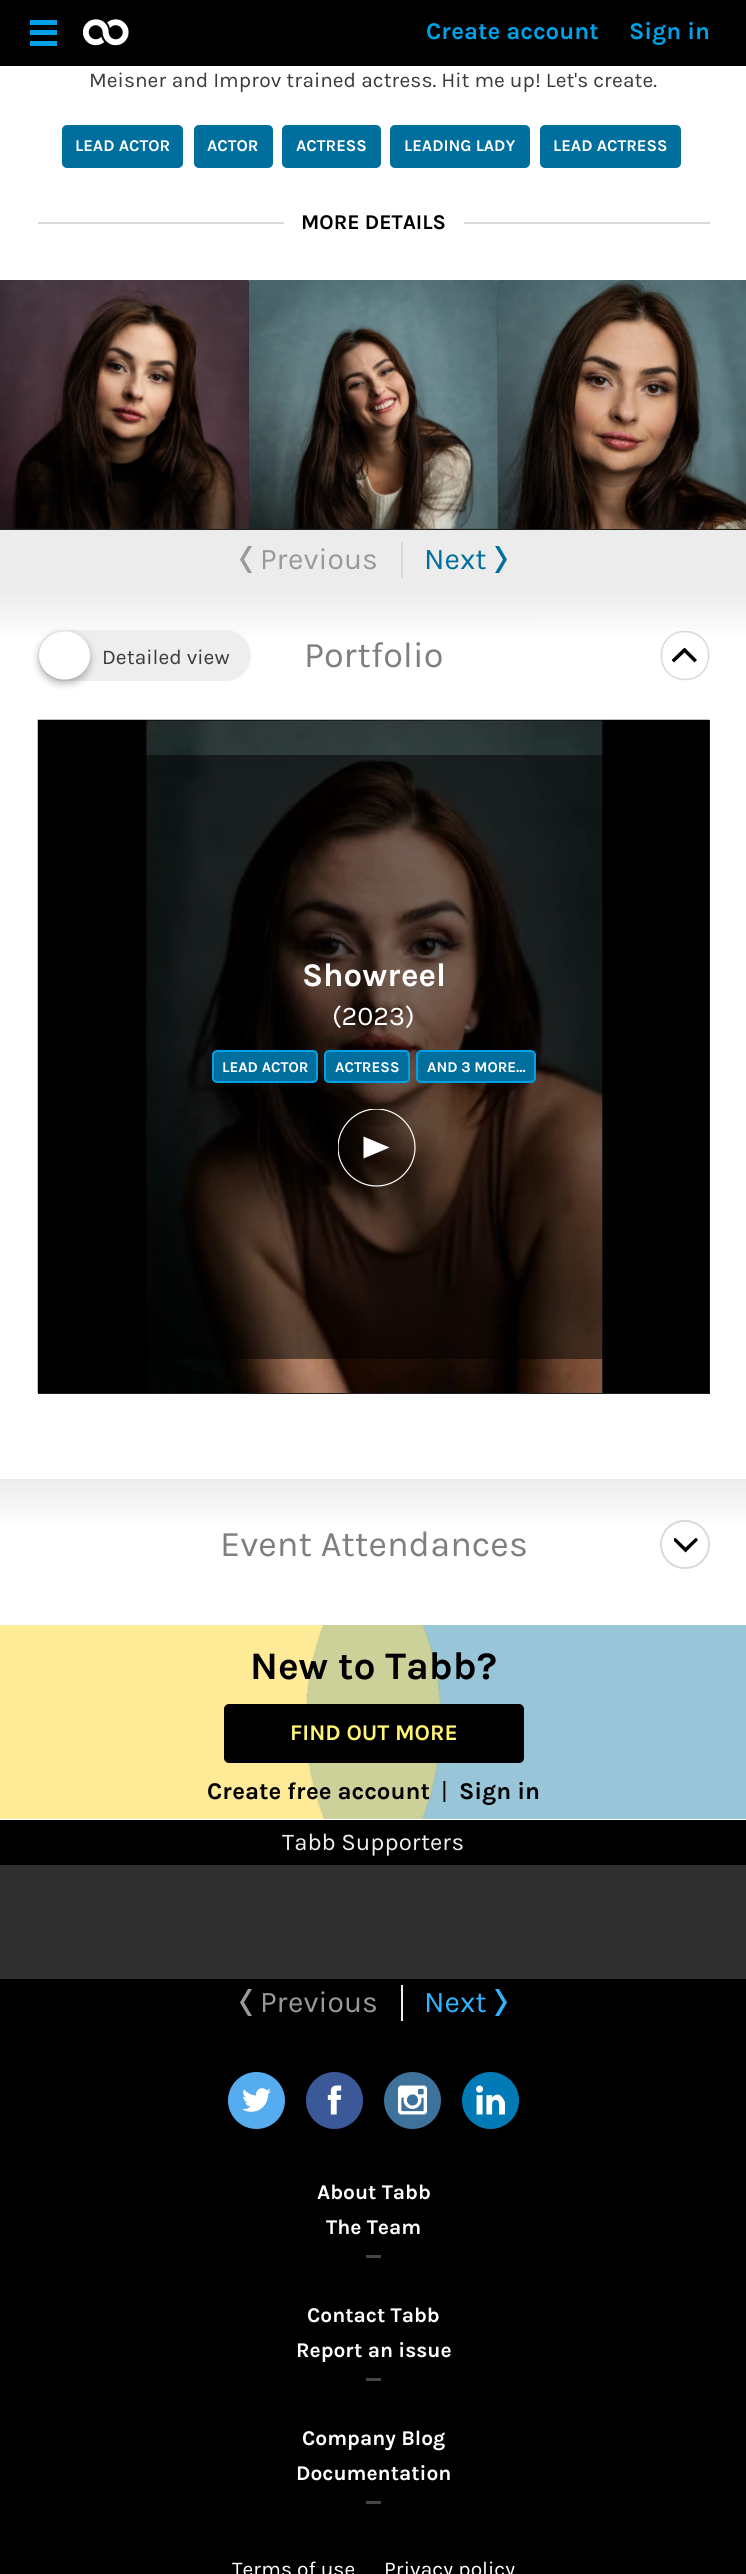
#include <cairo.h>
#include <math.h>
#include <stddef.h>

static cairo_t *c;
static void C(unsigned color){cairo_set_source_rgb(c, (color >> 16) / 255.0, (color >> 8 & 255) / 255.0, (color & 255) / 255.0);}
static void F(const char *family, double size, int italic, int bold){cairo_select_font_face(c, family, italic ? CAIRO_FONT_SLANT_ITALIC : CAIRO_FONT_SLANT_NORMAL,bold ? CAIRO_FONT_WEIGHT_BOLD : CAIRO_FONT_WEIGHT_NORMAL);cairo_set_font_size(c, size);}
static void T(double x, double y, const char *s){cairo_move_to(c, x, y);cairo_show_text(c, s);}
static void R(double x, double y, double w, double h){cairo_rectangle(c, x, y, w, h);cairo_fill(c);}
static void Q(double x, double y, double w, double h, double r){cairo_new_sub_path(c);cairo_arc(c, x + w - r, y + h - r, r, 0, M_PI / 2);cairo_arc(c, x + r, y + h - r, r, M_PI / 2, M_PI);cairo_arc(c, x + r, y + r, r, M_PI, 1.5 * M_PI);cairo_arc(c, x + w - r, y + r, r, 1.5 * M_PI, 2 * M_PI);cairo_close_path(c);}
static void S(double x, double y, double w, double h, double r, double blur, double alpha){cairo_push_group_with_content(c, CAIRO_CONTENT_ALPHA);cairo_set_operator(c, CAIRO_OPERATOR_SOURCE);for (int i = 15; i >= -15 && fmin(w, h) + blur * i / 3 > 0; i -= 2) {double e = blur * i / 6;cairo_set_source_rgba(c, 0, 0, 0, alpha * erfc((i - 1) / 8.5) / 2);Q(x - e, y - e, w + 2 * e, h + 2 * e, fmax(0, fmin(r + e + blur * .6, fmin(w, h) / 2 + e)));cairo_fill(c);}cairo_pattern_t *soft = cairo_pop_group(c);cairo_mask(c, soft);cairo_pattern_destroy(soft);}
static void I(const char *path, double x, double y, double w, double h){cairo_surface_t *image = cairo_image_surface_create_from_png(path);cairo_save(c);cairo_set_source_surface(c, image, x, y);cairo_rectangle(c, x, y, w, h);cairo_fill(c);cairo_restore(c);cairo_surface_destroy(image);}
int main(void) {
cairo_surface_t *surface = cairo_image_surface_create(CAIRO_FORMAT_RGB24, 746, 2574);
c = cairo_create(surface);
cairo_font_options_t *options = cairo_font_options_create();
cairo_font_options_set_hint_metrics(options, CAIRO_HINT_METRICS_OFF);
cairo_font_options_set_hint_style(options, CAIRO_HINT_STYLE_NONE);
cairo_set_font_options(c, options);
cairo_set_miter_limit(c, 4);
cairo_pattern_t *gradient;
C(0xffffff);
cairo_paint(c);
C(0x000000);
R(0,0,746,66);
C(0x00a1e6);
R(30,30,27,5);
R(30,20,27,5);
R(30,41,27,5);
I("1.png",83,19,46,27);
F("Karla",24,0,1);
T(426,39,"Create account");
T(629,39,"Sign in");
F("Karla",21,0,0);
C(0x3b3b3b);
T(89,87,"Meisner and Improv trained actress. Hit me up! Let's create.");
C(0x006f9e);
Q(62,125,121,43,5);
cairo_fill(c);
F("Karla",16.5,0,1);
C(0xffffff);
T(75,151,"LEAD ACTOR");
C(0x006f9e);
Q(194,125,79,43,5);
cairo_fill(c);
C(0xffffff);
T(207,151,"ACTOR");
C(0x006f9e);
Q(282,125,99,43,5);
cairo_fill(c);
C(0xffffff);
T(296,151,"ACTRESS");
C(0x006f9e);
Q(390,125,140,43,5);
cairo_fill(c);
C(0xffffff);
T(404,151,"LEADING LADY");
C(0x006f9e);
Q(540,125,141,43,5);
cairo_fill(c);
C(0xffffff);
T(553,151,"LEAD ACTRESS");
C(0xd9d9d9);
R(38,222,672,2);
C(0xffffff);
R(284,222,180,2);
F("Karla",21,0,1);
C(0x000000);
T(301,229,"MORE DETAILS");
C(0x202020);
R(0,281,498,249);
I("2.png",0,280,249,249);
I("3.png",249,280,249,249);
R(498,529,248,1);
I("4.png",498,280,248,249);
C(0xececec);
R(0,530,746,60);
C(0x999999);
cairo_set_fill_rule(c,CAIRO_FILL_RULE_EVEN_ODD);
cairo_new_path(c);
cairo_move_to(c,248,546);
cairo_line_to(c,252,546);
cairo_line_to(c,244,559.5);
cairo_line_to(c,252,573);
cairo_line_to(c,248,573);
cairo_line_to(c,240,559.5);
cairo_close_path(c);
cairo_fill(c);
F("Karla",30,0,0);
T(260,569,"Previous");
C(0xd9d9d9);
R(401,542,2,36);
C(0x006f9e);
T(424,569,"Next");
cairo_new_path(c);
cairo_move_to(c,499,573);
cairo_line_to(c,495,573);
cairo_line_to(c,503,559.5);
cairo_line_to(c,495,546);
cairo_line_to(c,499,546);
cairo_line_to(c,507,559.5);
cairo_close_path(c);
cairo_fill(c);
gradient = cairo_pattern_create_linear(373,589,374,1479);
cairo_pattern_add_color_stop_rgba(gradient,0,0.925,0.925,0.925,1);
cairo_pattern_add_color_stop_rgba(gradient,.06,1,1,1,1);
cairo_set_source(c,gradient);
cairo_pattern_destroy(gradient);
R(0,590,746,46);
C(0xeeeeee);
Q(38,630,213,51,25.5);
cairo_fill(c);
C(0x000000);
S(39,635,51,48,24,4,.3);
C(0xffffff);
cairo_new_path(c);
cairo_move_to(c,64.5,631.5);
cairo_curve_to(c,78.5,631.5,90,642,90,655.5);
cairo_curve_to(c,90,669,78.5,679.5,64.5,679.5);
cairo_curve_to(c,50.5,679.5,39,669,39,655.5);
cairo_curve_to(c,39,642,50.5,631.5,64.5,631.5);
cairo_close_path(c);
cairo_fill(c);
F("Karla",21,0,0);
C(0x3b3b3b);
T(102,664,"Detailed view");
F("Karla",36,0,0);
C(0x7f7f7f);
T(304,667,"Portfolio");
cairo_new_path(c);
cairo_move_to(c,685,679.5);
cairo_curve_to(c,653.5,679.5,653.5,631.5,685,631.5);
cairo_curve_to(c,716.5,631.5,716.5,679.5,685,679.5);
cairo_close_path(c);
C(0xd9d9d9);
cairo_set_line_width(c,1.5);
cairo_stroke(c);
cairo_save(c);
cairo_set_fill_rule(c,CAIRO_FILL_RULE_WINDING);
cairo_rectangle(c,672,648,25,15);
cairo_clip(c);
C(0x000000);
cairo_new_path(c);
cairo_move_to(c,671.5,660);
cairo_line_to(c,684.5,647.5);
cairo_line_to(c,697,660);
cairo_line_to(c,694.5,662.5);
cairo_line_to(c,684.5,652.5);
cairo_line_to(c,674,662.5);
cairo_close_path(c);
cairo_fill(c);
cairo_restore(c);
C(0x202020);
R(38,720,672,674);
I("5.png",37,719,673,674);
cairo_set_source_rgba(c,0,0,0,0.5);
R(143,755,462,604);
F("Karla",33,0,1);
C(0xffffff);
T(302,986,"Showreel");
F("Karla",27,0,0);
T(332,1025,"(2023)");
C(0x006f9e);
Q(213,1051,104,31,4);
cairo_fill_preserve(c);
C(0x00a1e6);
cairo_set_line_width(c,2);
cairo_stroke(c);
F("Karla",15,0,1);
C(0xffffff);
T(222,1072,"LEAD ACTOR");
C(0x006f9e);
Q(325,1051,84,31,4);
cairo_fill_preserve(c);
C(0x00a1e6);
cairo_stroke(c);
C(0xffffff);
T(335,1072,"ACTRESS");
C(0x006f9e);
Q(417,1051,118,31,4);
cairo_fill_preserve(c);
C(0x00a1e6);
cairo_stroke(c);
C(0xffffff);
T(427,1072,"AND 3 MORE...");
cairo_save(c);
cairo_set_fill_rule(c,CAIRO_FILL_RULE_WINDING);
cairo_rectangle(c,338,1109,78,78);
cairo_clip(c);
cairo_new_path(c);
cairo_move_to(c,376.5,1109);
cairo_curve_to(c,397.5,1109,415,1126.5,415,1147.5);
cairo_curve_to(c,415,1168.5,397.5,1186,376.5,1186);
cairo_curve_to(c,355.5,1186,338,1168.5,338,1147.5);
cairo_curve_to(c,338,1126.5,355.5,1109,376.5,1109);
cairo_close_path(c);
cairo_set_line_width(c,1.2);
cairo_stroke(c);
cairo_restore(c);
cairo_new_path(c);
cairo_move_to(c,363.5,1136.5);
cairo_line_to(c,389.5,1147.5);
cairo_line_to(c,363.5,1158.5);
cairo_close_path(c);
cairo_fill(c);
gradient = cairo_pattern_create_linear(374,1479,374,1625);
cairo_pattern_add_color_stop_rgba(gradient,0,0.925,0.925,0.925,1);
cairo_pattern_add_color_stop_rgba(gradient,.36,1,1,1,1);
cairo_set_source(c,gradient);
cairo_pattern_destroy(gradient);
R(0,1479,746,46);
F("Karla",36,0,0);
C(0x7f7f7f);
T(220,1556,"Event Attendances");
Q(661,1521,48,47,23.5);
C(0xd9d9d9);
cairo_stroke(c);
cairo_save(c);
cairo_set_fill_rule(c,CAIRO_FILL_RULE_WINDING);
cairo_rectangle(c,674,1538,24,15);
cairo_clip(c);
C(0x000000);
cairo_new_path(c);
cairo_move_to(c,698,1540);
cairo_line_to(c,685.5,1552.5);
cairo_line_to(c,673,1540);
cairo_line_to(c,675,1537.5);
cairo_line_to(c,685.5,1547.5);
cairo_line_to(c,696,1537.5);
cairo_close_path(c);
cairo_fill(c);
cairo_restore(c);
I("6.png",0,1625,746,194);
F("Karla",39,0,1);
C(0x000000);
T(250,1679,"New to Tabb?");
Q(224,1704,300,59,5);
cairo_fill(c);
F("Karla",22.5,0,1);
C(0xfff474);
T(290,1740,"FIND OUT MORE");
F("Karla",24,0,1);
C(0x000000);
T(207,1799,"Create free account");
F("Karla",24,0,0);
T(441,1799,"|");
F("Karla",24,0,1);
T(459,1799,"Sign in");
R(0,1820,746,45);
F("Karla",24,0,0);
C(0xeeeeee);
T(282,1850,"Tabb Supporters");
C(0x303030);
R(0,1865,746,114);
C(0x000000);
R(0,1979,746,595);
C(0x999999);
cairo_new_path(c);
cairo_move_to(c,248,1989);
cairo_line_to(c,252,1989);
cairo_line_to(c,244,2002.5);
cairo_line_to(c,252,2016);
cairo_line_to(c,248,2016);
cairo_line_to(c,240,2002.5);
cairo_close_path(c);
cairo_fill(c);
F("Karla",30,0,0);
T(260,2012,"Previous");
C(0xeeeeee);
R(401,1985,2,36);
C(0x33b2ff);
T(424,2012,"Next");
cairo_new_path(c);
cairo_move_to(c,499,2016);
cairo_line_to(c,495,2016);
cairo_line_to(c,503,2002.5);
cairo_line_to(c,495,1989);
cairo_line_to(c,499,1989);
cairo_line_to(c,507,2002.5);
cairo_close_path(c);
cairo_fill(c);
C(0x55acee);
cairo_arc(c,256.5,2100.5,28.5,0,2 * M_PI);
cairo_fill(c);
I("7.png",242,2088,29,24);
C(0x3b5998);
cairo_arc(c,334.5,2100.5,28.5,0,2 * M_PI);
cairo_fill(c);
I("8.png",327,2085,15,30);
C(0x3f729b);
cairo_arc(c,412.5,2100.5,28.5,0,2 * M_PI);
cairo_fill(c);
I("9.png",398,2085,29,30);
C(0x007bb5);
cairo_arc(c,490.5,2100.5,28.5,0,2 * M_PI);
cairo_fill(c);
I("10.png",476,2085,29,30);
F("Karla",21,0,1);
C(0xffffff);
T(317,2199,"About Tabb");
T(326,2234,"The Team");
C(0x464646);
R(366,2255,15,3);
C(0xffffff);
T(307,2322,"Contact Tabb");
T(296,2357,"Report an issue");
C(0x464646);
R(366,2378,15,3);
C(0xffffff);
T(302,2445,"Company Blog");
T(296,2480,"Documentation");
C(0x464646);
R(366,2501,15,3);
F("Karla",21,0,0);
C(0xffffff);
T(232,2576,"Terms of use");
T(384,2576,"Privacy policy");
cairo_surface_write_to_png(surface, "o.png");
cairo_font_options_destroy(options);
cairo_destroy(c);
cairo_surface_destroy(surface);
return 0;
}
